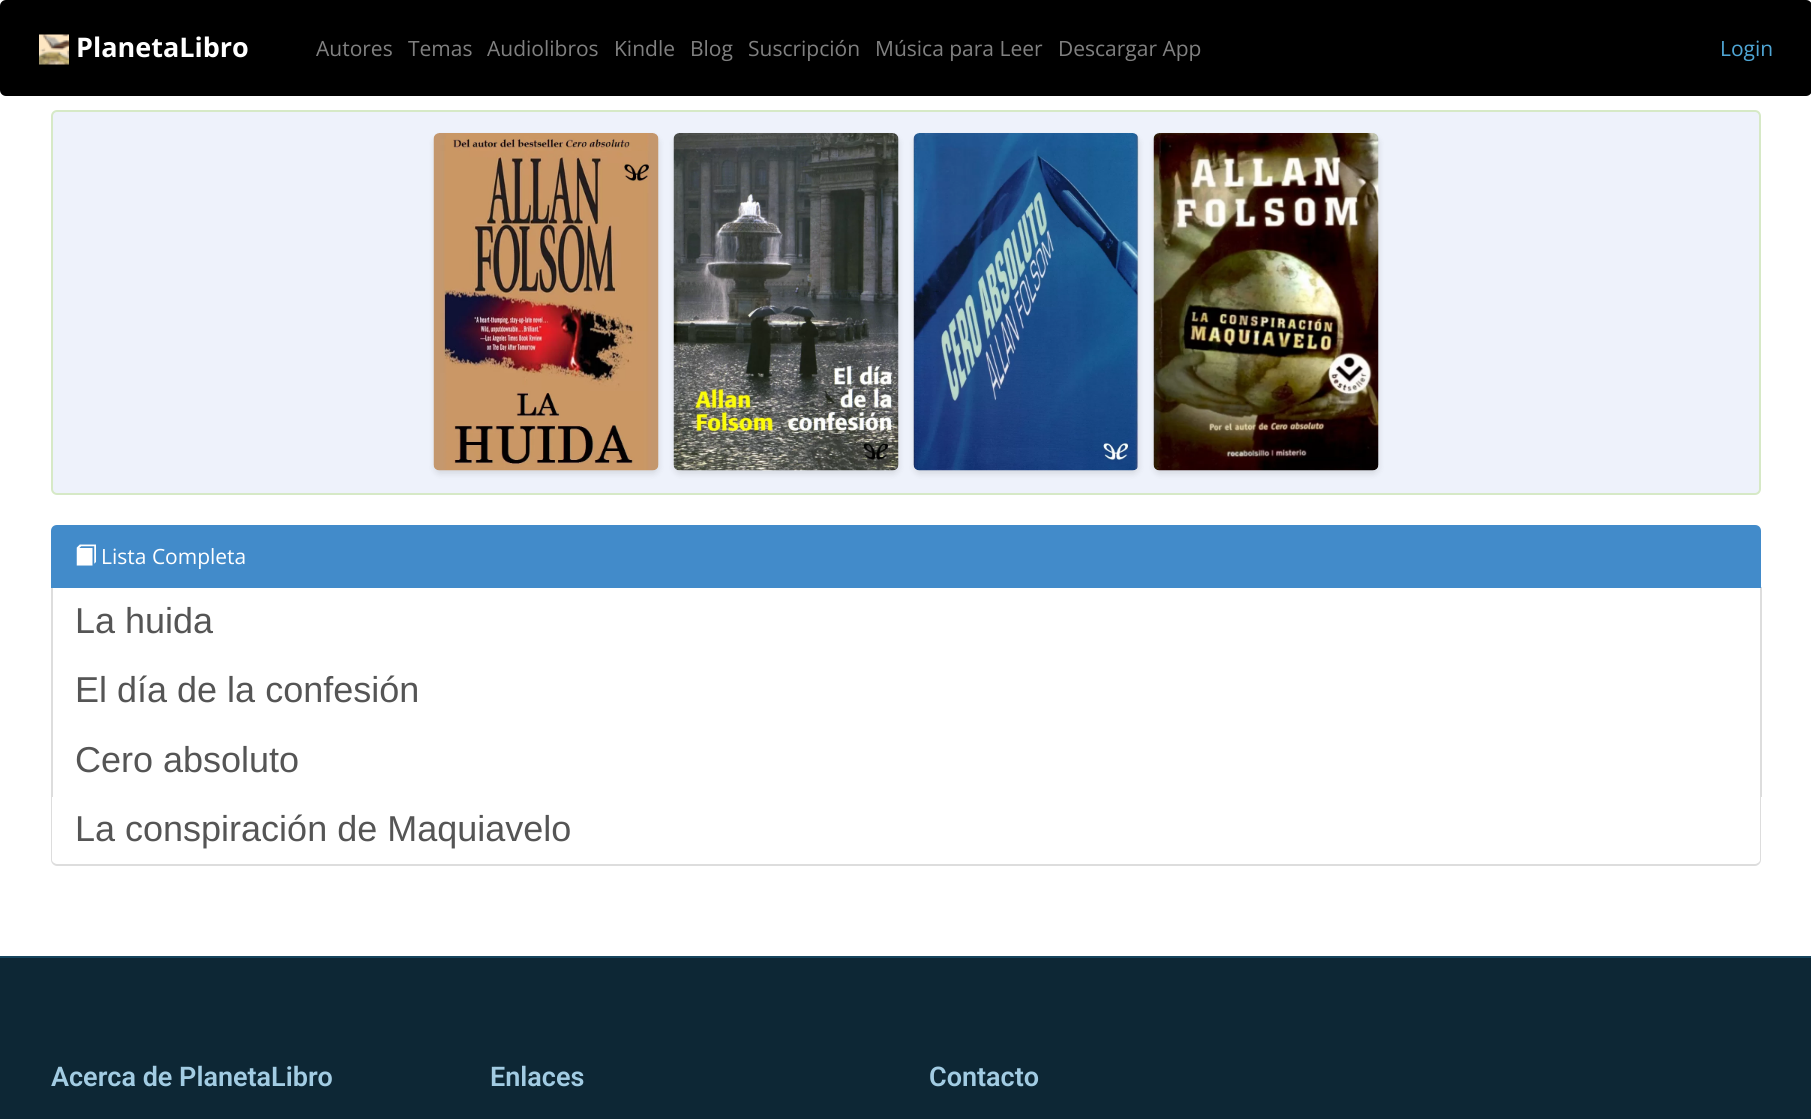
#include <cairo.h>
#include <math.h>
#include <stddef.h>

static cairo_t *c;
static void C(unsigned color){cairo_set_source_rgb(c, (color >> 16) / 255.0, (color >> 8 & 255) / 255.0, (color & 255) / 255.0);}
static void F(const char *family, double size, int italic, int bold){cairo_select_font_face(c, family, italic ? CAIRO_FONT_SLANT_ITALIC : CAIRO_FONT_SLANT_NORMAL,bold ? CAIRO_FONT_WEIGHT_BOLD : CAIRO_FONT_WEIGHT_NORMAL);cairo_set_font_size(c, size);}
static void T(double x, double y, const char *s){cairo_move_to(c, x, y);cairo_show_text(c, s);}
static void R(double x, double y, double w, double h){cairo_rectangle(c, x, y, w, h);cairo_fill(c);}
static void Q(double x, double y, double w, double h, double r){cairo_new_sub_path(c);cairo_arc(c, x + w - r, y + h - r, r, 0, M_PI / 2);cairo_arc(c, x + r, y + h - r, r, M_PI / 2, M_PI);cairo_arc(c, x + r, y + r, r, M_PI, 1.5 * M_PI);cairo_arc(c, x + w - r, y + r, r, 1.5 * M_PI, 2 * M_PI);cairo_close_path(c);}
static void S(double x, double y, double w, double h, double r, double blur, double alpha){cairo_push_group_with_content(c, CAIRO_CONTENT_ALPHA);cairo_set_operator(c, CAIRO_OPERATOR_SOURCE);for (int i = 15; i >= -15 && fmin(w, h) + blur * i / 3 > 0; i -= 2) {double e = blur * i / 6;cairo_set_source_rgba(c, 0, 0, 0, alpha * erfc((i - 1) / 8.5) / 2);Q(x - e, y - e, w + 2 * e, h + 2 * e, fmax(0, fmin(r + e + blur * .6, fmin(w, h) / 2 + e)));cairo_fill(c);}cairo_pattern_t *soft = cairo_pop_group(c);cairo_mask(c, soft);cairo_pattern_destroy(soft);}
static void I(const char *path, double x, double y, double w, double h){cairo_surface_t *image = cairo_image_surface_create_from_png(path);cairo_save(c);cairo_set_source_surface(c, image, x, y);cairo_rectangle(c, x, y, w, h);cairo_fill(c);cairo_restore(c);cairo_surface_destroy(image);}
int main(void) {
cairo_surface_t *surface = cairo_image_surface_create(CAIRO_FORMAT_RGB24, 1811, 1119);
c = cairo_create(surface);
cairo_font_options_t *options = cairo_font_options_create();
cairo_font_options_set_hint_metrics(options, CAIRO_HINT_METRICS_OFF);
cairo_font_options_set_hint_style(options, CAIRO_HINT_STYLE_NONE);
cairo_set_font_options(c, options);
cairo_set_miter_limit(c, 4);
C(0xffffff);
cairo_paint(c);
C(0x000000);
Q(0,0,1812,96,6);
cairo_fill(c);
I("1.png",39,34,30,31);
F("Open Sans",27,0,1);
C(0xffffff);
T(76,57,"PlanetaLibro");
F("Open Sans",21,0,0);
C(0x808080);
T(316,56,"Autores");
T(408,56,"Temas");
T(487,56,"Audiolibros");
T(614,56,"Kindle");
T(690,56,"Blog");
T(748,56,"Suscripción");
T(875,56,"Música para Leer");
T(1058,56,"Descargar App");
C(0x4fa6d5);
T(1720,56,"Login");
C(0xeef2fb);
Q(52,111,1708,383,5);
cairo_fill_preserve(c);
C(0xd6e9c6);
cairo_stroke(c);
C(0x000000);
S(434,137,225,337,6,3,.1);
I("2.png",433,133,226,338);
S(674,137,225,337,6,3,.1);
I("3.png",673,133,226,338);
S(914,137,225,337,6,3,.1);
I("4.png",913,133,226,338);
S(1154,137,225,337,6,3,.1);
I("5.png",1153,133,226,338);
C(0xdddddd);
R(1760,587,2,210);
R(51,587,2,210);
C(0x428bca);
cairo_new_path(c);
cairo_move_to(c,57,526);
cairo_line_to(c,1755,526);
cairo_curve_to(c,1758,526,1760,528,1760,531);
cairo_line_to(c,1760,587);
cairo_line_to(c,52,587);
cairo_line_to(c,52,531);
cairo_curve_to(c,52,528,54,526,57,526);
cairo_close_path(c);
cairo_fill_preserve(c);
cairo_stroke(c);
I("6.png",76,544,20,22);
C(0xffffff);
T(101,564,"Lista Completa");
F("Liberation Sans",36,0,0);
C(0x555555);
T(75,633,"La huida");
T(75,702,"El día de la confesión");
T(75,772,"Cero absoluto");
C(0xdddddd);
cairo_set_fill_rule(c,CAIRO_FILL_RULE_EVEN_ODD);
cairo_new_path(c);
cairo_move_to(c,51,795);
cairo_line_to(c,1761,795);
cairo_line_to(c,1761,860);
cairo_curve_to(c,1761,863,1758,866,1755,866);
cairo_line_to(c,57,866);
cairo_curve_to(c,54,866,51,863,51,860);
cairo_close_path(c);
cairo_move_to(c,52,795);
cairo_line_to(c,1760,795);
cairo_line_to(c,1760,860);
cairo_curve_to(c,1760,862,1757,864,1755,864);
cairo_line_to(c,57,864);
cairo_curve_to(c,55,864,52,862,52,860);
cairo_close_path(c);
cairo_fill(c);
C(0x555555);
T(75,841,"La conspiración de Maquiavelo");
C(0x0d2735);
R(0,958,1811,161);
C(0x17455e);
R(0,956,1811,2);
F("Roboto SemiBold",27,0,0);
C(0xa2cce3);
T(51,1086,"Acerca de PlanetaLibro");
T(490,1086,"Enlaces");
T(929,1086,"Contacto");
cairo_surface_write_to_png(surface, "o.png");
cairo_font_options_destroy(options);
cairo_destroy(c);
cairo_surface_destroy(surface);
return 0;
}
